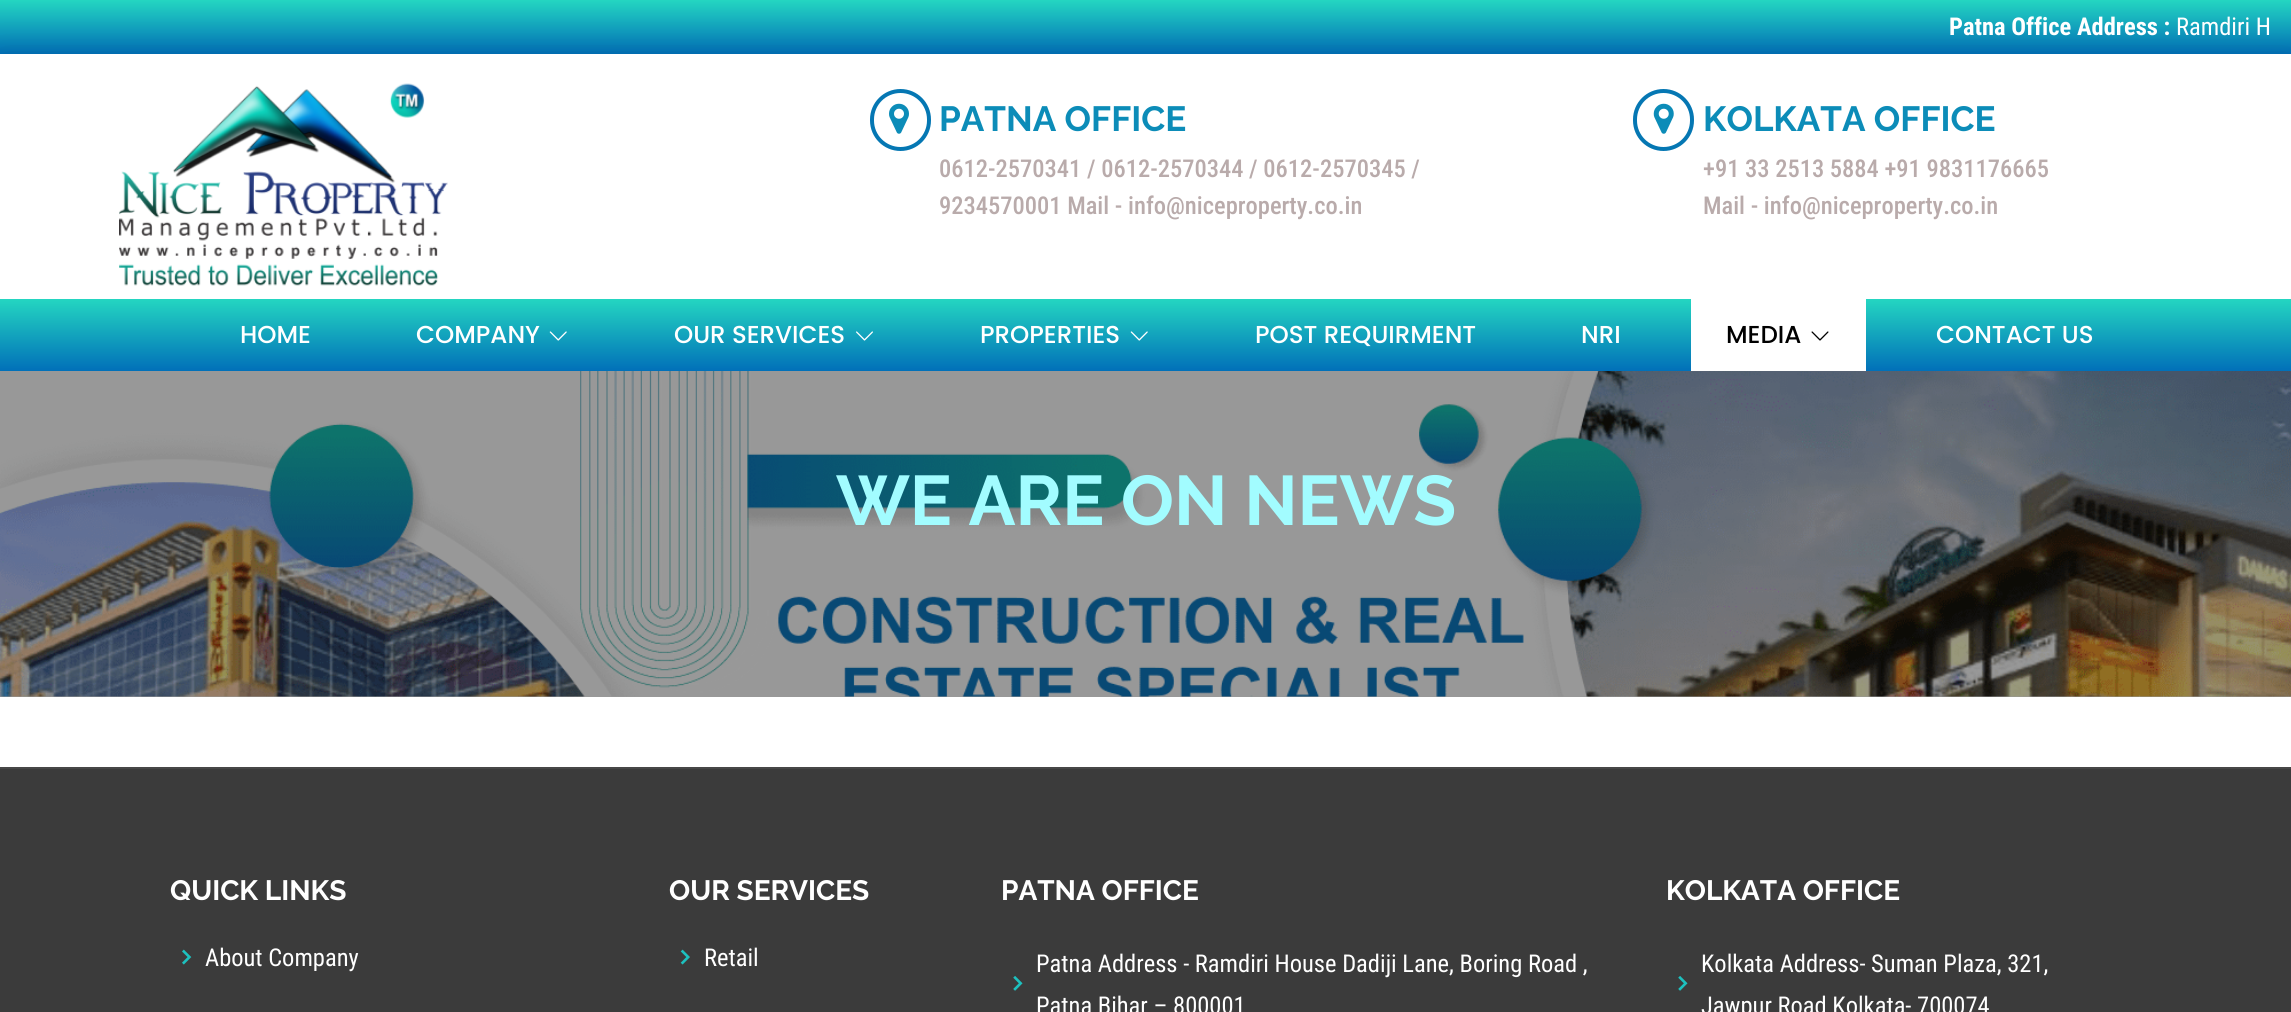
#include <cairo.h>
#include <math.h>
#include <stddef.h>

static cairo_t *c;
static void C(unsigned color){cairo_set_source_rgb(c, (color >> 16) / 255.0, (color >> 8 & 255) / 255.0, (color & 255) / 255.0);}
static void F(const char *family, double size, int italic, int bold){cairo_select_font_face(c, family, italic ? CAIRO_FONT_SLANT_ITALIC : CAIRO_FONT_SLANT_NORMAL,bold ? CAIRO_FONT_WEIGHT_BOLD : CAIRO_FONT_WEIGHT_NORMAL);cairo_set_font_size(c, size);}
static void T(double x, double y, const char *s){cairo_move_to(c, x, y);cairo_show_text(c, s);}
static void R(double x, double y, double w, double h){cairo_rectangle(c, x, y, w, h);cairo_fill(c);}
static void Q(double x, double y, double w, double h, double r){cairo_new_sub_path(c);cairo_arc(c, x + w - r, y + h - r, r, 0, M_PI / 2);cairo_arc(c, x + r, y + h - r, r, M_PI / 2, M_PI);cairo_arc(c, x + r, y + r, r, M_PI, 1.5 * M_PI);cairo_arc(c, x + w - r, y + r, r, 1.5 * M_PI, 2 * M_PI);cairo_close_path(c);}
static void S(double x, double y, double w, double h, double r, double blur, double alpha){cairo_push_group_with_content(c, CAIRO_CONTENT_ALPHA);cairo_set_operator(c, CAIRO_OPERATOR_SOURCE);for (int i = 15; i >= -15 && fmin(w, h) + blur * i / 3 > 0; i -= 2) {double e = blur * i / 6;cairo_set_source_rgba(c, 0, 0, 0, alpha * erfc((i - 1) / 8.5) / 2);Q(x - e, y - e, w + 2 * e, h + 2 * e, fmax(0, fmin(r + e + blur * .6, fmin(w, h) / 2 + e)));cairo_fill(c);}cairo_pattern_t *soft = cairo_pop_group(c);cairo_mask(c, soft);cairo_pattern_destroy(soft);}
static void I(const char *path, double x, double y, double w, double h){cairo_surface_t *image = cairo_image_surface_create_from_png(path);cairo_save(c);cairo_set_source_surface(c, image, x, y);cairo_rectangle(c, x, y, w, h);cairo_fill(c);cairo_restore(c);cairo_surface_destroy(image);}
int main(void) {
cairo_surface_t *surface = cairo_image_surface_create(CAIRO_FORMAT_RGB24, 2291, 1012);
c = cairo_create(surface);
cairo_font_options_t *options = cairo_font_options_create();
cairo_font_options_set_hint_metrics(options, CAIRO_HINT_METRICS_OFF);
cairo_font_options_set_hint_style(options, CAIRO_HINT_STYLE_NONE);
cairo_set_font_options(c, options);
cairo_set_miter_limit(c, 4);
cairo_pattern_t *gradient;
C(0xffffff);
cairo_paint(c);
gradient = cairo_pattern_create_linear(1146,0,1146,54);
cairo_pattern_add_color_stop_rgba(gradient,0,0.141,0.839,0.757,1);
cairo_pattern_add_color_stop_rgba(gradient,1,0.004,0.439,0.725,1);
cairo_set_source(c,gradient);
cairo_pattern_destroy(gradient);
R(0,0,2291,54);
C(0x000000);
S(0,54,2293,317,0,17.5,.1);
F("Roboto Condensed",24.5,0,1);
C(0xffffff);
T(1949,35,"Patna Office Address :");
F("Roboto Condensed",24.5,0,0);
T(2176,35,"Ramdiri H");
R(0,54,2291,245);
I("1.png",119,83,329,203);
Q(872,91,57,58,28.5);
C(0x0577b3);
cairo_set_line_width(c,4);
cairo_stroke(c);
I("2.png",889,103,20,31);
F("Raleway",35,0,1);
C(0x0c8cb8);
T(939,131,"PATNA OFFICE");
F("Roboto Condensed Medium",24.5,0,0);
C(0xb9abab);
T(939,177,"0612-2570341 / 0612-2570344 / 0612-2570345 /");
T(939,214,"9234570001 Mail - info@niceproperty.co.in");
Q(1635,91,57,58,28.5);
C(0x0577b3);
cairo_stroke(c);
I("3.png",1653,103,21,31);
F("Raleway",35,0,1);
C(0x0c8cb8);
T(1703,131,"KOLKATA OFFICE");
F("Roboto Condensed Medium",24.5,0,0);
C(0xb9abab);
T(1703,177,"+91 33 2513 5884 +91 9831176665");
T(1703,214,"Mail - info@niceproperty.co.in");
gradient = cairo_pattern_create_linear(1146,299,1146,371);
cairo_pattern_add_color_stop_rgba(gradient,0,0.141,0.839,0.757,1);
cairo_pattern_add_color_stop_rgba(gradient,1,0.004,0.439,0.725,1);
cairo_set_source(c,gradient);
cairo_pattern_destroy(gradient);
R(0,299,2291,72);
F("Poppins Medium",24.5,0,0);
C(0xffffff);
T(240,343,"HOME");
T(416,343,"COMPANY");
I("4.png",549,331,18,10);
T(674,343,"OUR SERVICES");
I("5.png",856,331,17,10);
T(980,343,"PROPERTIES");
I("4.png",1130,331,18,10);
T(1255,343,"POST REQUIRMENT");
T(1581,343,"NRI");
R(1691,299,175,72);
C(0x000000);
T(1726,343,"MEDIA");
I("6.png",1811,331,18,10);
C(0xffffff);
T(1936,343,"CONTACT US");
I("7.png",0,371,2291,326);
cairo_set_source_rgba(c,0,0,0,0.4);
R(0,371,2291,326);
F("Raleway",70,0,1);
C(0xa2fcff);
T(836,525,"WE ARE ON NEWS");
C(0x3b3b3b);
R(0,769,2291,243);
C(0x474747);
R(0,767,2291,2);
F("Raleway",28,0,1);
C(0xffffff);
T(170,900,"QUICK LINKS");
I("8.png",182,949,10,16);
F("Roboto Condensed",24.5,0,0);
T(205,966,"About Company");
F("Raleway",28,0,1);
T(669,900,"OUR SERVICES");
I("9.png",680,949,10,16);
F("Roboto Condensed",24.5,0,0);
T(704,966,"Retail");
F("Raleway",28,0,1);
T(1001,900,"PATNA OFFICE");
I("10.png",1013,976,10,15);
F("Roboto Condensed",24.5,0,0);
T(1036,972,"Patna Address - Ramdiri House Dadiji Lane, Boring Road ,");
T(1036,1014,"Patna Bihar – 800001");
F("Raleway",28,0,1);
T(1666,900,"KOLKATA OFFICE");
I("10.png",1678,976,10,15);
F("Roboto Condensed",24.5,0,0);
T(1701,972,"Kolkata Address- Suman Plaza, 321,");
T(1701,1014,"Jawpur Road Kolkata- 700074");
cairo_surface_write_to_png(surface, "o.png");
cairo_font_options_destroy(options);
cairo_destroy(c);
cairo_surface_destroy(surface);
return 0;
}
